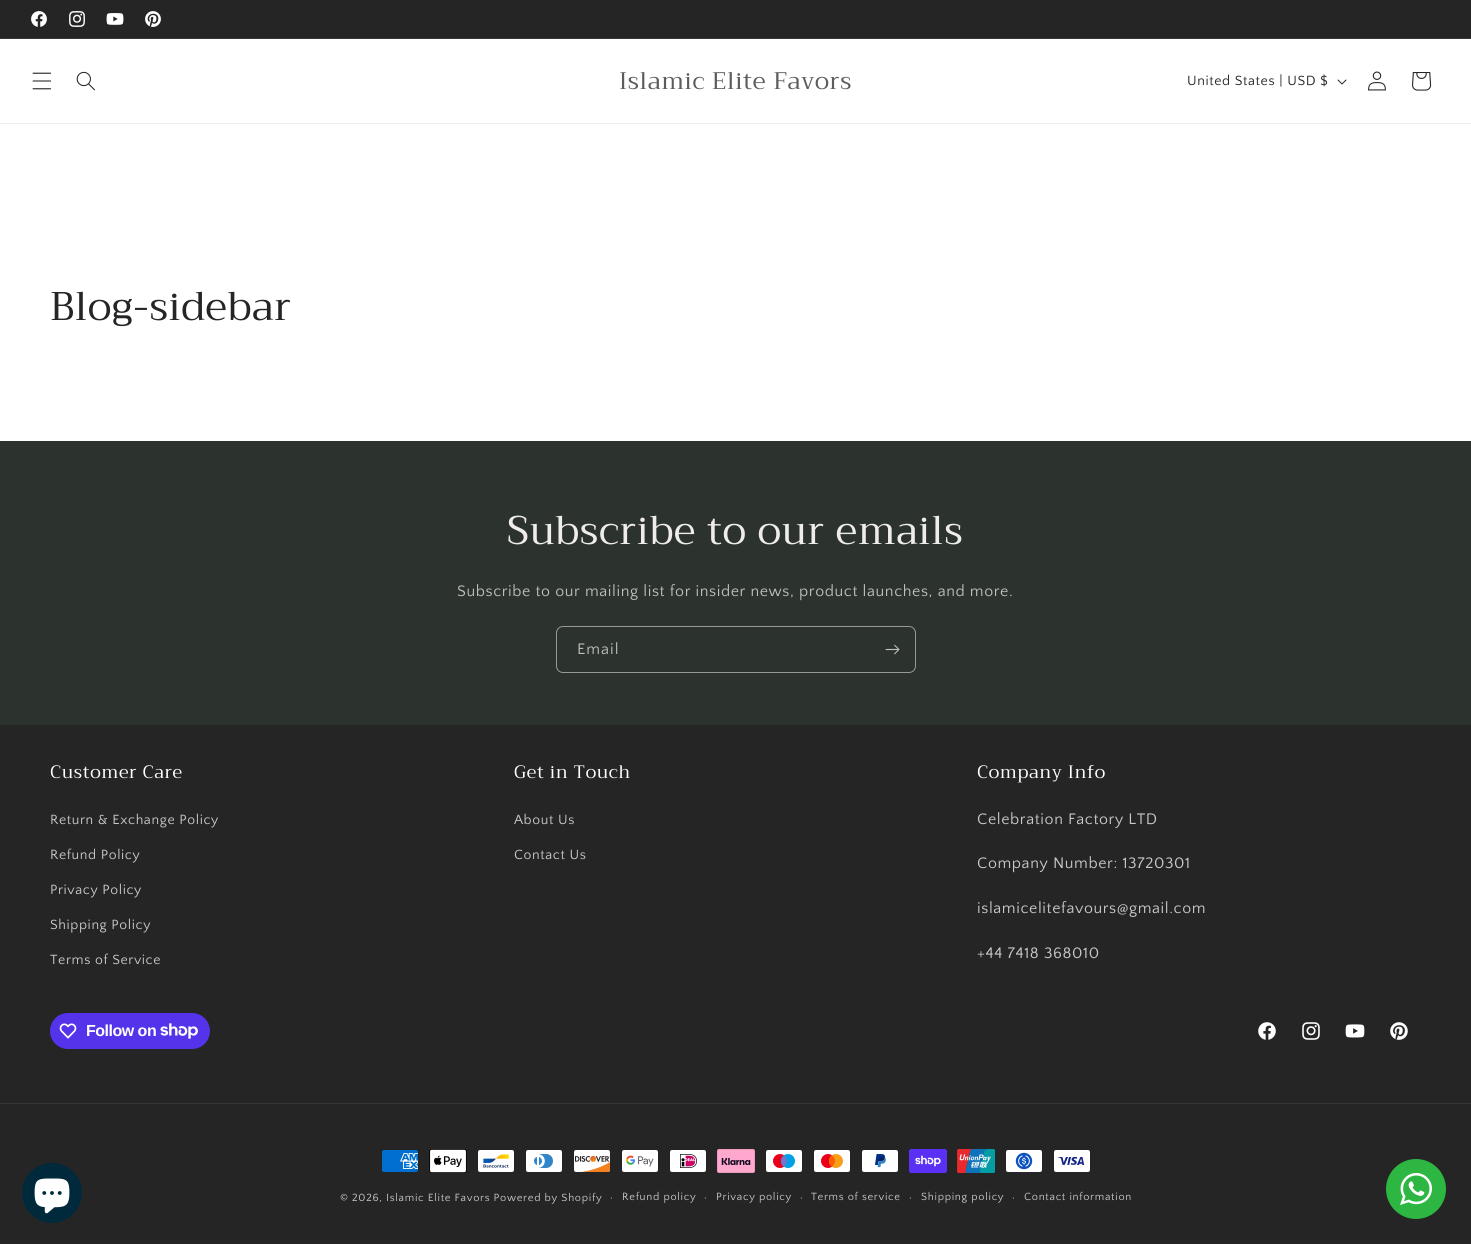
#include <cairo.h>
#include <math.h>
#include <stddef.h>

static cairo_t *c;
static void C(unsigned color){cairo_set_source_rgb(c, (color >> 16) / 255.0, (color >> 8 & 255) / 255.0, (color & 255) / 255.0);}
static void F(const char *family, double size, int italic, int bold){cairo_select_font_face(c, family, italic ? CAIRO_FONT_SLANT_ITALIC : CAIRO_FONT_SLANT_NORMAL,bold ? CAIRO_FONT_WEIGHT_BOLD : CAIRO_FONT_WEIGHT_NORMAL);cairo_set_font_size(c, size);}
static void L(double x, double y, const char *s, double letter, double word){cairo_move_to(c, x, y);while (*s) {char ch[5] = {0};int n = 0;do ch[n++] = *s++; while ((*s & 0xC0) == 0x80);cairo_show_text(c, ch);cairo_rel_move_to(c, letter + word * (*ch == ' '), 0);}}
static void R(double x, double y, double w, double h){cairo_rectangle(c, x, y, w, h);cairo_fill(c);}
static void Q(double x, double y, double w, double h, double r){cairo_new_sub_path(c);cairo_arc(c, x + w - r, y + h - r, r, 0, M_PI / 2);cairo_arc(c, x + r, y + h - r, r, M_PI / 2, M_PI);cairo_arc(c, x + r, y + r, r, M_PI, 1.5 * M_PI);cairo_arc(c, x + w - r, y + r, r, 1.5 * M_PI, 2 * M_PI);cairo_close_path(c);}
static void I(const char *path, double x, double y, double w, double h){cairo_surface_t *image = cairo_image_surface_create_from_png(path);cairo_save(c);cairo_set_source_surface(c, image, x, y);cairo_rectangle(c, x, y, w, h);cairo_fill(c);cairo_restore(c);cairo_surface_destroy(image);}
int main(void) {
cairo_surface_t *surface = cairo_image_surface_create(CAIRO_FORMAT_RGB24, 1471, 1244);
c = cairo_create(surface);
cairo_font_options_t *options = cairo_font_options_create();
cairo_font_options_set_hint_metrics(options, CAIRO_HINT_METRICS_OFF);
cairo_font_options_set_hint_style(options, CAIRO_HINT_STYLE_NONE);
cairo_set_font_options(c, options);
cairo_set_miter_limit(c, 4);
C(0xffffff);
cairo_paint(c);
C(0x252525);
R(0,0,1471,38);
C(0x363636);
R(0,38,1471,1);
I("1.png",31,11,16,16);
I("2.png",69,11,16,16);
I("3.png",106,13,18,12);
I("4.png",145,11,16,16);
C(0xeeeeee);
R(0,123,1471,1);
I("5.png",32,72,20,18);
I("6.png",76,71,19,20);
F("Trirong",24,0,0);
C(0x5c5c5c);
L(619,89,"Islamic Elite Favors",.6,0);
F("Quattrocento Sans",14,0,0);
C(0x252525);
L(1187,85,"United States | USD $",.6,0);
I("7.png",1337,79,10,6);
I("8.png",1368,71,18,20);
I("9.png",1412,72,20,19);
F("Trirong",40,0,0);
L(50,320,"Blog-sidebar",.6,0);
C(0x2c332f);
R(0,441,1471,284);
C(0xefecec);
L(507,544,"Subscribe to our emails",.6,0);
F("Quattrocento Sans",16,0,0);
C(0xbebebd);
L(457,596,"Subscribe to our mailing list for insider news, product launches, and more.",.6,0);
Q(556.5,626.5,359,46,6.5);
C(0x979997);
cairo_set_line_width(c,1);
cairo_stroke(c);
C(0xbebebd);
L(577,654,"Email",1,0);
I("10.png",885,644,15,11);
C(0x252525);
R(0,725,1471,519);
F("Trirong",18,0,0);
C(0xffffff);
L(50,778,"Customer Care",.6,0);
F("Quattrocento Sans",14,0,0);
C(0xc9c9c9);
L(50,824,"Return & Exchange Policy",.6,0);
L(50,859,"Refund Policy",.6,0);
L(50,894,"Privacy Policy",.6,0);
L(50,929,"Shipping Policy",.6,0);
L(50,964,"Terms of Service",.6,0);
F("Trirong",18,0,0);
C(0xffffff);
L(514,778,"Get in Touch",.6,0);
F("Quattrocento Sans",14,0,0);
C(0xc9c9c9);
L(514,824,"About Us",.6,0);
L(514,859,"Contact Us",.6,0);
F("Trirong",18,0,0);
C(0xffffff);
L(977,778,"Company Info",.6,0);
F("Quattrocento Sans",16,0,0);
C(0xc9c9c9);
L(977,824,"Celebration Factory LTD",.6,0);
L(977,868,"Company Number: 13720301",.6,0);
L(977,913,"islamicelitefavours@gmail.com",.6,0);
L(977,958,"+44 7418 368010",.6,0);
C(0x5433eb);
Q(50,1013,160,36,18);
cairo_fill(c);
I("11.png",59,1023,18,16);
F("Liberation Sans",16,0,1);
C(0xffffff);
L(86,1036,"Follow on",-.5,0);
I("12.png",160,1023,38,16);
I("13.png",1258,1022,18,18);
I("14.png",1302,1022,18,18);
I("15.png",1345,1024,20,14);
I("16.png",1390,1022,18,18);
C(0x363636);
R(0,1103,1471,1);
I("17.png",382,1150,36,22);
I("18.png",429,1149,38,24);
I("19.png",478,1150,36,22);
I("20.png",526,1150,36,22);
I("21.png",574,1150,36,22);
I("22.png",622,1150,36,22);
I("23.png",670,1150,36,22);
I("24.png",717,1149,38,24);
I("25.png",766,1150,36,22);
I("26.png",814,1150,36,22);
I("27.png",862,1150,36,22);
I("28.png",909,1149,38,24);
I("29.png",957,1149,38,24);
I("30.png",1006,1150,36,22);
I("31.png",1054,1150,36,22);
F("Quattrocento Sans",11,0,0);
C(0xc9c9c9);
L(340,1201,"© 2026, Islamic Elite Favors Powered by Shopify",.7,0);
F("Quattrocento Sans",12,0,0);
L(610,1201,"·",.7,0);
F("Quattrocento Sans",11,0,0);
L(622,1200,"Refund policy",.7,0);
F("Quattrocento Sans",12,0,0);
L(704,1201,"·",.7,0);
F("Quattrocento Sans",11,0,0);
L(716,1200,"Privacy policy",.7,0);
F("Quattrocento Sans",12,0,0);
L(800,1201,"·",.7,0);
F("Quattrocento Sans",11,0,0);
L(811,1200,"Terms of service",.7,0);
F("Quattrocento Sans",12,0,0);
L(909,1201,"·",.7,0);
F("Quattrocento Sans",11,0,0);
L(921,1200,"Shipping policy",.7,0);
F("Quattrocento Sans",12,0,0);
L(1012,1201,"·",.7,0);
F("Quattrocento Sans",11,0,0);
L(1024,1200,"Contact information",.7,0);
C(0x2db742);
cairo_new_path(c);
cairo_arc(c,1416,1189,30,0,2 * M_PI);
cairo_fill(c);
I("32.png",1400,1173,32,32);
C(0x00293c);
cairo_arc(c,52,1193,30,0,2 * M_PI);
cairo_fill(c);
I("33.png",34,1178,36,36);
cairo_surface_write_to_png(surface, "o.png");
cairo_font_options_destroy(options);
cairo_destroy(c);
cairo_surface_destroy(surface);
return 0;
}
